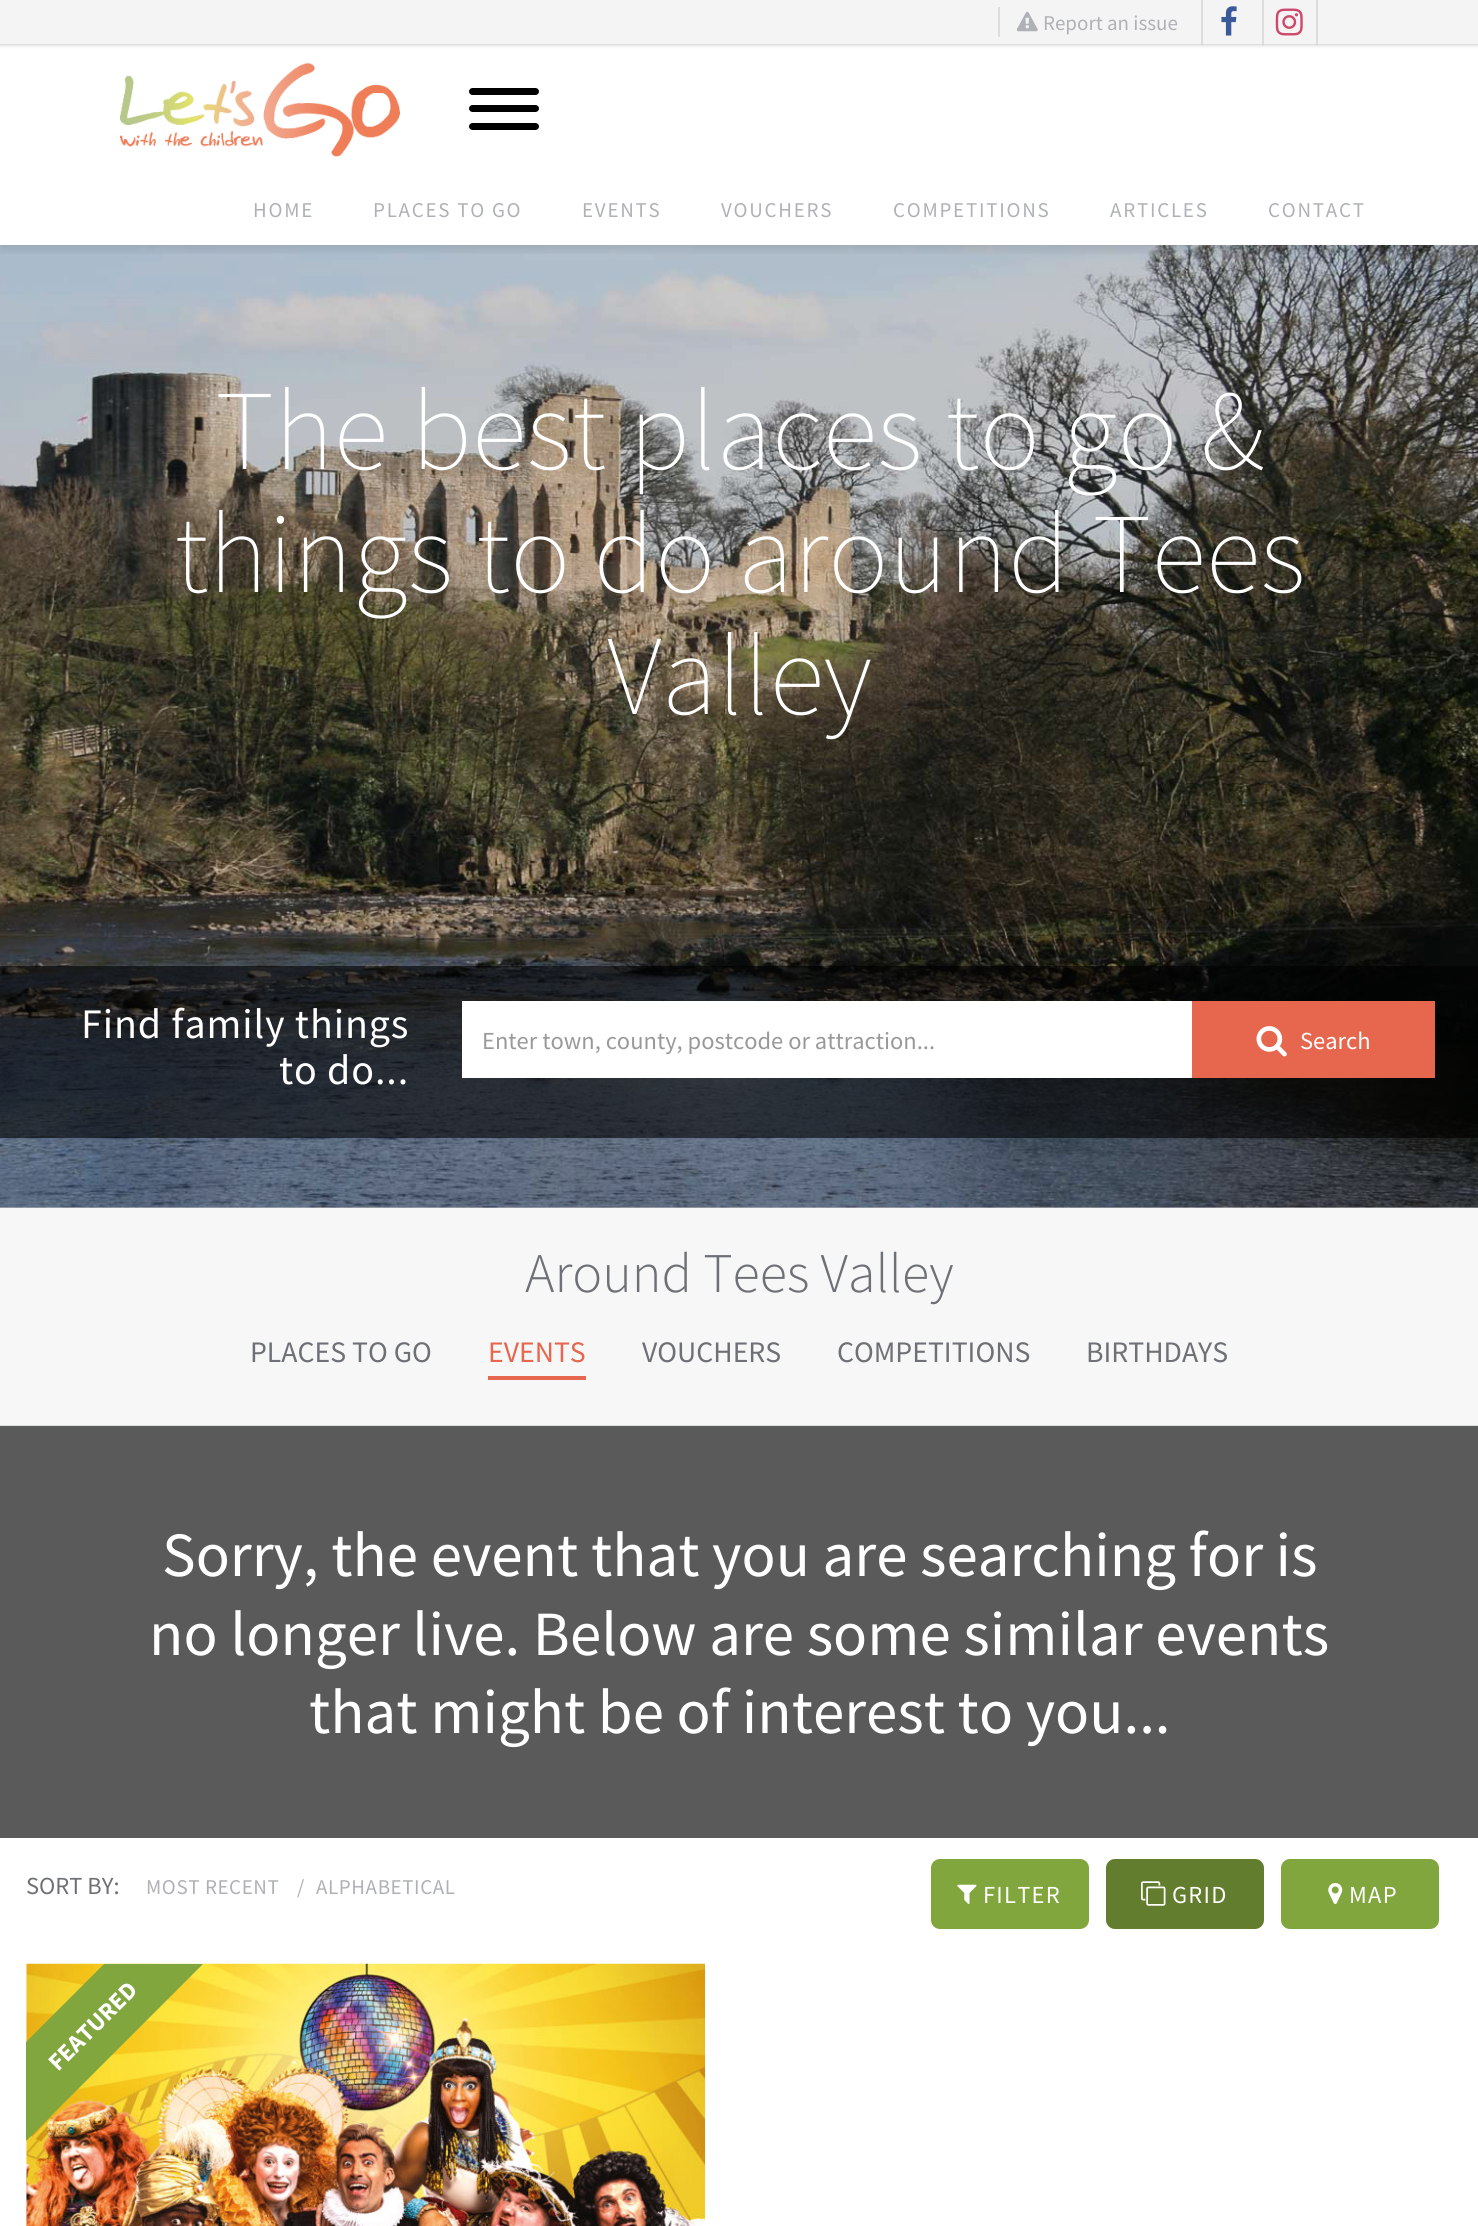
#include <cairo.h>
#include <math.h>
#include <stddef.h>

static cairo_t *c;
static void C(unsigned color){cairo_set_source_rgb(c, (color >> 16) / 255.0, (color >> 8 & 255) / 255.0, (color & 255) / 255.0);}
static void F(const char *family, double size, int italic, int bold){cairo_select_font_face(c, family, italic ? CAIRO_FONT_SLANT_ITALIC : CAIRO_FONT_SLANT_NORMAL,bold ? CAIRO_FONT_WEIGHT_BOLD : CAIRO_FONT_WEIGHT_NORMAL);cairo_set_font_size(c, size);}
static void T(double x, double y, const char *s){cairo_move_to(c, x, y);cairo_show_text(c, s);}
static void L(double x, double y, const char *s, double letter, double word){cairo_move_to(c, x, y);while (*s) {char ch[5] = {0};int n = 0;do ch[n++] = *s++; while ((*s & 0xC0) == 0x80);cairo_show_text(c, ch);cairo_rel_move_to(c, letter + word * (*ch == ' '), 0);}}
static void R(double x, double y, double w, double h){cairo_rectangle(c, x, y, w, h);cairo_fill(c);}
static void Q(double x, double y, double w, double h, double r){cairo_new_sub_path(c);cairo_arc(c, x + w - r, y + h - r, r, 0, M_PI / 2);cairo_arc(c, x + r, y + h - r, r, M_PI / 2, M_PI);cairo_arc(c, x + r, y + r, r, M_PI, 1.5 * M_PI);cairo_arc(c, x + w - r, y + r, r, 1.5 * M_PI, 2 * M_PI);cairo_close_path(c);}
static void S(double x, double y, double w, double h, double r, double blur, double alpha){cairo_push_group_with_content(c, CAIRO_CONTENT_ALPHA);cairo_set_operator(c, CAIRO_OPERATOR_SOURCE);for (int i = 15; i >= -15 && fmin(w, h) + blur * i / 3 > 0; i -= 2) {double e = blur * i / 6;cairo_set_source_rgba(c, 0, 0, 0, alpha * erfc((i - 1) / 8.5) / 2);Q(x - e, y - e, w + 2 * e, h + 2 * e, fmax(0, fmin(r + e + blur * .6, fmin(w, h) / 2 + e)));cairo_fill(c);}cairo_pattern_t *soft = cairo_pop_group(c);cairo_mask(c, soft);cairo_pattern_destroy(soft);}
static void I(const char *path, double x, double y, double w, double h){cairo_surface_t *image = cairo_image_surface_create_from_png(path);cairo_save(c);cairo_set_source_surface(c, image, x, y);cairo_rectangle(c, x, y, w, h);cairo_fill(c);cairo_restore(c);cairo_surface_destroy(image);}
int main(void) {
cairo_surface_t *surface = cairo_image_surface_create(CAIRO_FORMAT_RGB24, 1478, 2226);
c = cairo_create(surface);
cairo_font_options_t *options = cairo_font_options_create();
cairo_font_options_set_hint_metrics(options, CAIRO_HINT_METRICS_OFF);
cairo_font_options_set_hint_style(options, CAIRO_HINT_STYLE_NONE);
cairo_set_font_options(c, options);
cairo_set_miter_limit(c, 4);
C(0xffffff);
cairo_paint(c);
C(0xc4c3c4);
R(0,1207,1478,1);
I("5.png",0,245,1478,963);
cairo_save(c);
cairo_rectangle(c,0,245,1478,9);
cairo_clip(c);
C(0x000000);
S(0,5,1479,245,0,5,.1);
cairo_restore(c);
C(0x000000);
S(0,0,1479,44,0,2.5,.3);
C(0xf5f4f5);
R(0,0,1478,44);
C(0xdddddd);
R(998,7,2,30);
I("1.png",1016,11,22,21);
F("Source Sans Pro",21,0,0);
C(0xaeb1b5);
T(1043,30,"Report an issue");
C(0xdddddd);
R(1201,0,2,46);
I("2.png",1221,6,16,30);
R(1316,0,2,46);
R(1262,0,2,46);
I("3.png",1275,8,28,28);
I("4.png",119,62,281,95);
C(0x000000);
Q(469,88,70,7,3.5);
cairo_fill(c);
Q(469,105,70,7,3.5);
cairo_fill(c);
Q(469,123,70,7,3.5);
cairo_fill(c);
C(0xaeb1b5);
L(253,217,"HOME",1.75,0);
L(373,217,"PLACES TO GO",1.75,0);
L(582,217,"EVENTS",1.75,0);
L(721,217,"VOUCHERS",1.75,0);
L(893,217,"COMPETITIONS",1.75,0);
L(1110,217,"ARTICLES",1.75,0);
L(1268,217,"CONTACT",1.75,0);
F("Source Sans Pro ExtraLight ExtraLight",113.75,0,0);
C(0xffffff);
T(215,469,"The best places to go &");
T(174,592,"things to do around Tees");
T(607,714,"Valley");
cairo_set_source_rgba(c,0,0,0,0.6);
R(0,966,1478,172);
F("Source Sans Pro",42,0,0);
C(0xffffff);
L(81,1038,"Find family things",.9,0);
L(279,1084,"to do...",.9,0);
R(462,1001,730,77);
F("Source Sans Pro",24.5,0,0);
C(0x999999);
T(482,1049,"Enter town, county, postcode or attraction...");
C(0xe7674e);
R(1192,1001,243,77);
I("6.png",1256,1026,31,31);
C(0xffffff);
T(1300,1049,"Search");
C(0xf7f7f7);
R(0,1208,1478,217);
C(0xdce1e1);
R(0,1425,1478,1);
F("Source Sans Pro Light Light",56,0,0);
C(0x6d7075);
T(525,1292,"Around Tees Valley");
F("Source Sans Pro",29.75,0,0);
T(250,1362,"PLACES TO GO");
C(0xe7674e);
T(488,1362,"EVENTS");
R(488,1376,98,4);
C(0x6d7075);
T(642,1362,"VOUCHERS");
T(837,1362,"COMPETITIONS");
T(1086,1362,"BIRTHDAYS");
C(0x5a5a5a);
R(0,1426,1478,412);
F("Source Sans Pro",63,0,0);
C(0xffffff);
T(162,1576,"Sorry, the event that you are searching for is");
T(149,1655,"no longer live. Below are some similar events");
T(309,1733,"that might be of interest to you...");
F("Source Sans Pro",24.5,0,0);
C(0x6d7075);
T(26,1894,"SORT BY:");
F("Source Sans Pro",21,0,0);
C(0xaeb1b5);
L(146,1894,"MOST RECENT",.6,0);
L(297,1894,"/",.6,0);
L(316,1894,"ALPHABETICAL",.6,0);
C(0x81a63d);
Q(931,1859,158,70,9);
cairo_fill(c);
I("7.png",957,1884,20,20);
F("Source Sans Pro",24.5,0,0);
C(0xffffff);
L(983,1903,"FILTER",1.25,0);
C(0x617d2d);
Q(1106,1859,158,70,9);
cairo_fill(c);
I("8.png",1141,1881,25,25);
C(0xffffff);
L(1172,1903,"GRID",1.25,0);
C(0x81a63d);
Q(1281,1859,158,70,9);
cairo_fill(c);
I("9.png",1328,1883,15,21);
C(0xffffff);
L(1349,1903,"MAP",1.25,0);
I("10.png",26,1963,680,263);
cairo_save(c);
cairo_rectangle(c,26,1964,679,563);
cairo_clip(c);
C(0x81a63d);
cairo_new_path(c);
cairo_move_to(c,-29,2097);
cairo_line_to(c,163,1905);
cairo_line_to(c,213,1954);
cairo_line_to(c,21,2146);
cairo_close_path(c);
cairo_fill(c);
cairo_restore(c);
F("Source Sans Pro",24.5,0,1);
cairo_save(c);
cairo_translate(c,58,2072);
cairo_rotate(c,-45 * M_PI / 180);
T(0,0,"FEATURED");
cairo_restore(c);
cairo_surface_write_to_png(surface, "o.png");
cairo_font_options_destroy(options);
cairo_destroy(c);
cairo_surface_destroy(surface);
return 0;
}
